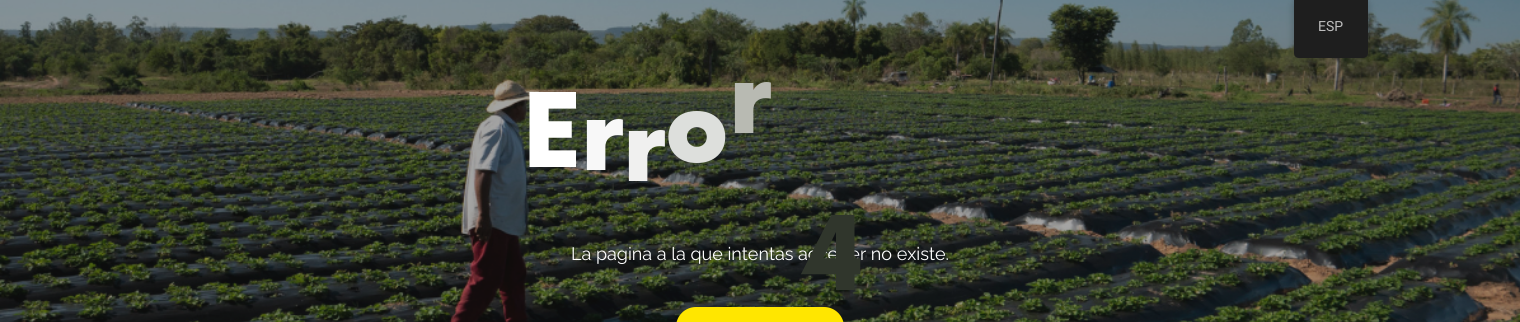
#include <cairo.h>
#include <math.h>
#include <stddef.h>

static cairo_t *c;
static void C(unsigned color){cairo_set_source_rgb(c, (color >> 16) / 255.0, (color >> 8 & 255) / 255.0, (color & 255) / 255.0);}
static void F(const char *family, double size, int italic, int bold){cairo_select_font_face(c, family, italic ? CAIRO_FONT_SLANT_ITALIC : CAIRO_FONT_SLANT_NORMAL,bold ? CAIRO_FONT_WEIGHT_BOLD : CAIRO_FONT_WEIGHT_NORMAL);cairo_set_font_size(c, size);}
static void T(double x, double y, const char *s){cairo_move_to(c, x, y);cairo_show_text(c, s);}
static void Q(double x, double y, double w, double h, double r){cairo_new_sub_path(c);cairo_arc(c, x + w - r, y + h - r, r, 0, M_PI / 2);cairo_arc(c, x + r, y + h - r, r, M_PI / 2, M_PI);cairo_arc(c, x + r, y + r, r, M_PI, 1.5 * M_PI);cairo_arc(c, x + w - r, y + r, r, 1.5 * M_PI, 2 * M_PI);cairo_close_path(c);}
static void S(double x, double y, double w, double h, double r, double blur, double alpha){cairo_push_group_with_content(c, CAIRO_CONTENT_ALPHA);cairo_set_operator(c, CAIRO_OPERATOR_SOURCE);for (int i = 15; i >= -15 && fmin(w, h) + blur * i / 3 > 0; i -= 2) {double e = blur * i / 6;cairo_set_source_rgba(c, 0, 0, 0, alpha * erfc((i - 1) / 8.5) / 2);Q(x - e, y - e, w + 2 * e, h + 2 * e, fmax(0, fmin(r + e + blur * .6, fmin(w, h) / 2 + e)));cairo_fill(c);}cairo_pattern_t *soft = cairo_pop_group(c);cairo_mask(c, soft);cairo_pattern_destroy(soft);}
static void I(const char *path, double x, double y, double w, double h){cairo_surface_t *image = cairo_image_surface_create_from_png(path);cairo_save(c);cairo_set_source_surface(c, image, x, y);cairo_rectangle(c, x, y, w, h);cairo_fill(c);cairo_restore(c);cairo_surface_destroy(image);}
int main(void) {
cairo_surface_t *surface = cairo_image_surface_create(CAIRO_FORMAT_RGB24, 1520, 322);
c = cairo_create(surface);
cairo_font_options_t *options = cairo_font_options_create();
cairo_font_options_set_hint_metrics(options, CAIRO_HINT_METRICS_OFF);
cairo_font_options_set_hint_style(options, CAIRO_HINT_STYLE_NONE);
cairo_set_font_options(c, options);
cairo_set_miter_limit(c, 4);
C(0xffffff);
cairo_paint(c);
I("1.png",0,0,1520,322);
C(0x000000);
S(1294,0,74,58,5,4,.25);
C(0x1e1e1e);
cairo_new_path(c);
cairo_move_to(c,1294,0);
cairo_line_to(c,1368,0);
cairo_line_to(c,1368,53);
cairo_curve_to(c,1368,56,1366,58,1363,58);
cairo_line_to(c,1299,58);
cairo_curve_to(c,1296,58,1294,56,1294,53);
cairo_close_path(c);
cairo_fill(c);
F("Roboto",14,0,0);
C(0xbdbdbd);
T(1318,31,"ESP");
F("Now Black",100,0,0);
C(0xffffff);
T(522,167,"E");
C(0xf8f8f8);
T(580,170,"r");
C(0xf0f0ef);
T(622,181,"r");
C(0xdddfdc);
T(665,162,"o");
C(0xb8bab2);
T(728,133,"r");
F("Raleway",18,0,0);
C(0xffffff);
T(571,260,"La pagina a la que intentas acceder no existe.");
F("Now Black",100,0,0);
C(0x30362c);
T(800,290,"4");
C(0xffe600);
Q(676,307,168,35,20);
cairo_fill(c);
cairo_surface_write_to_png(surface, "o.png");
cairo_font_options_destroy(options);
cairo_destroy(c);
cairo_surface_destroy(surface);
return 0;
}
